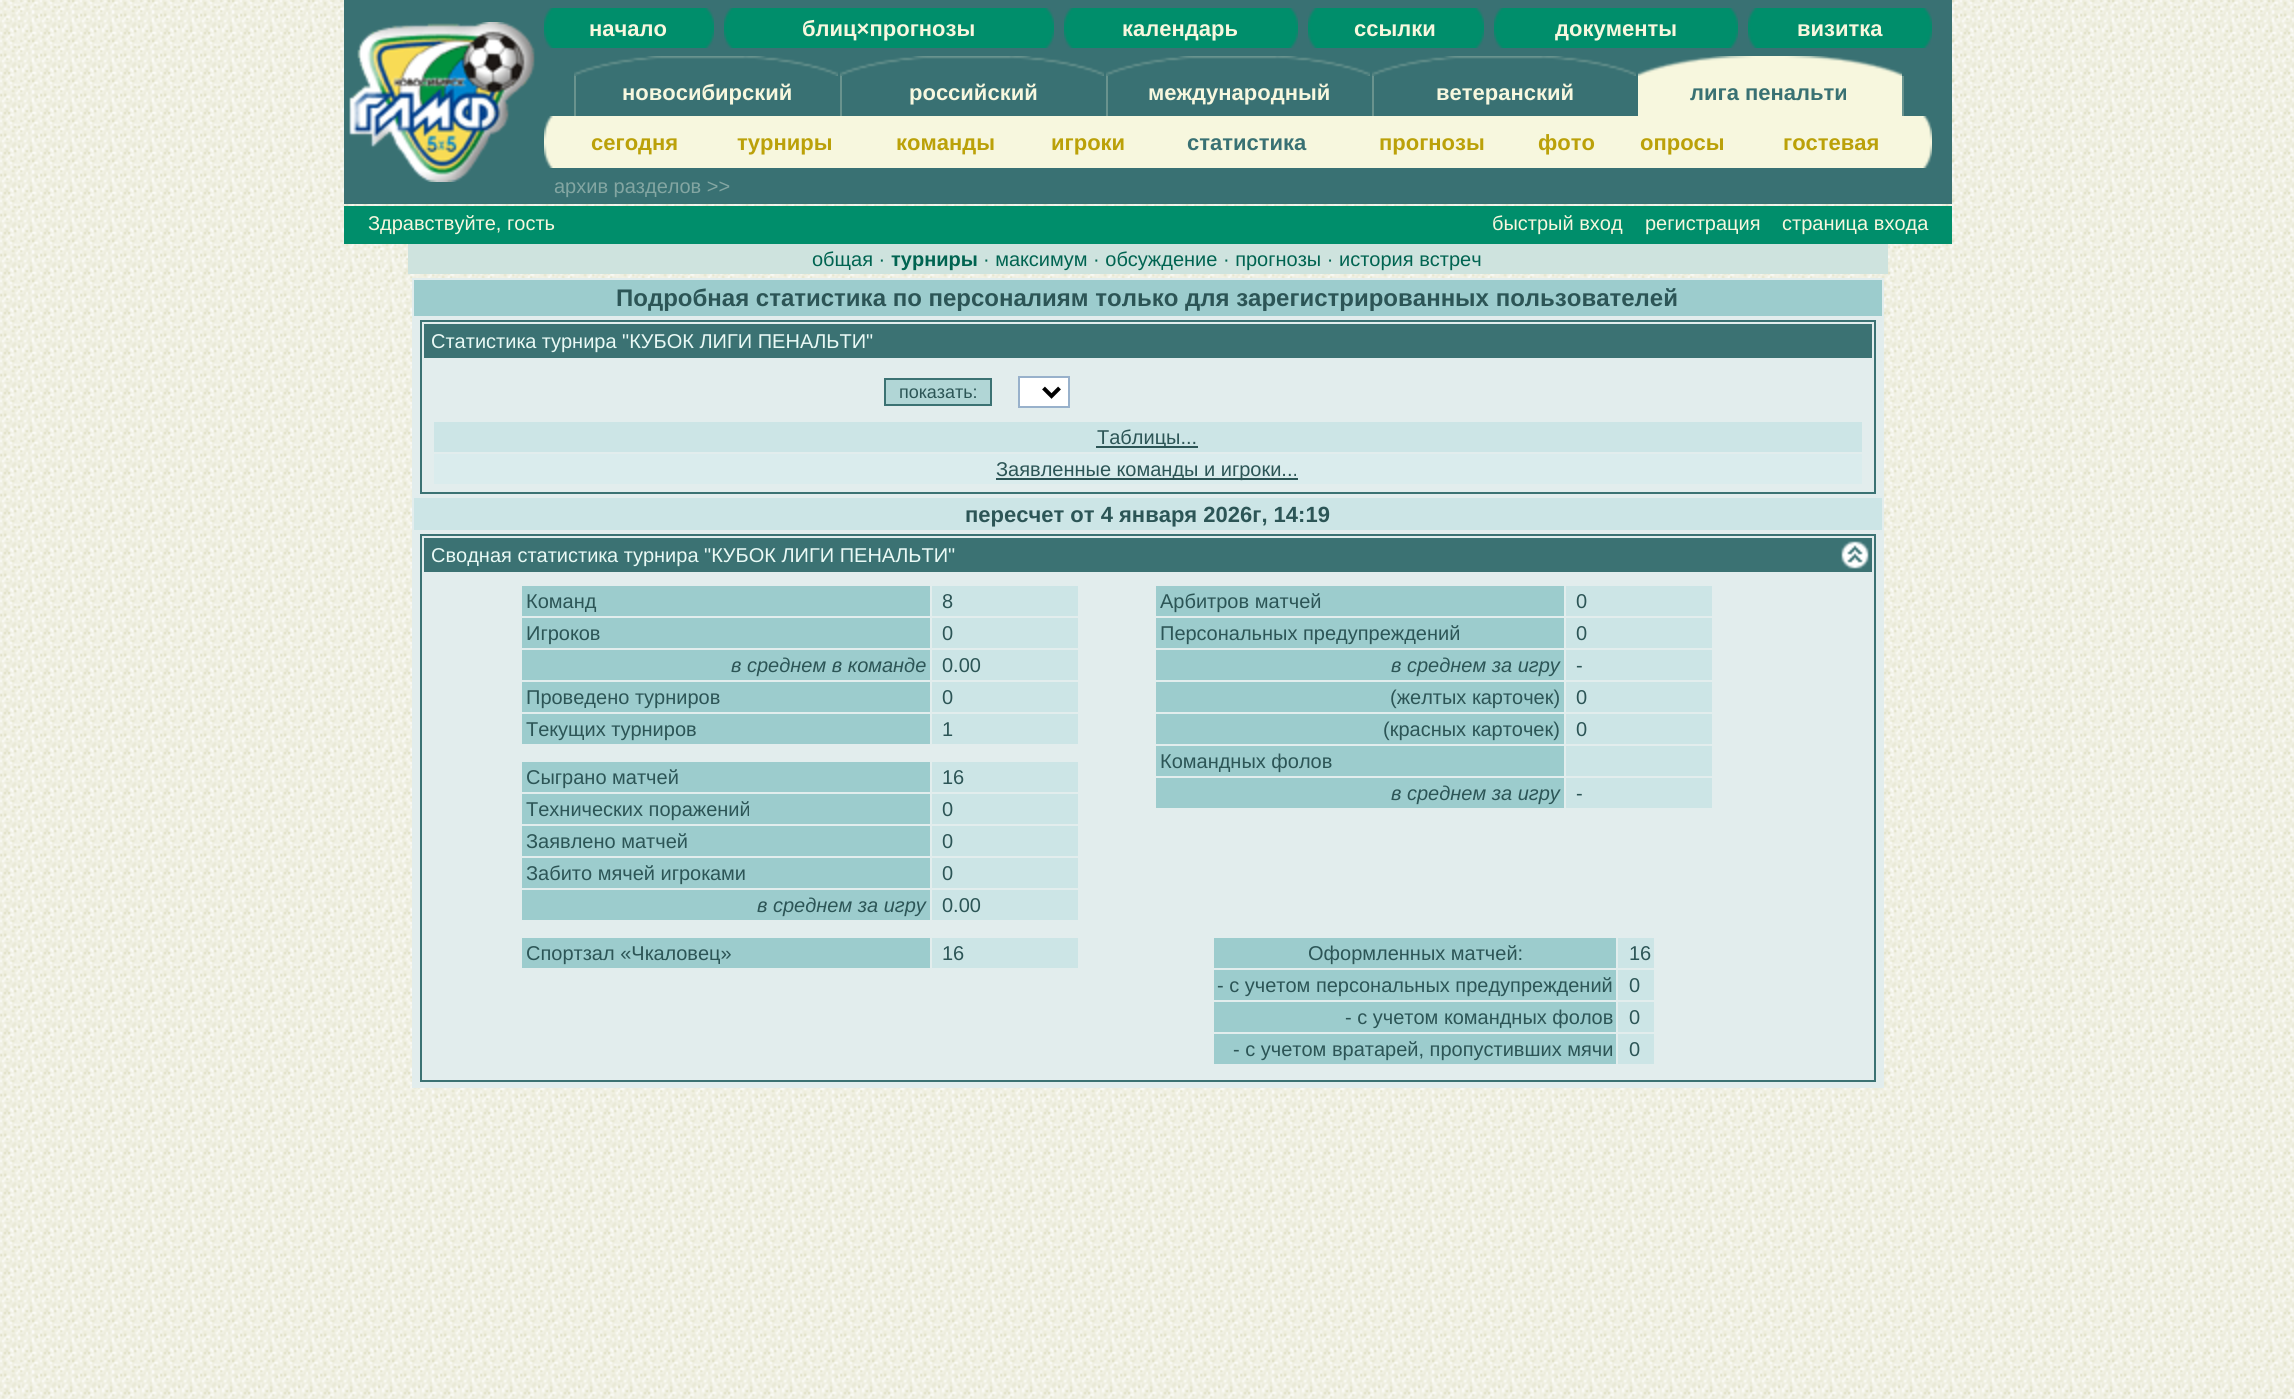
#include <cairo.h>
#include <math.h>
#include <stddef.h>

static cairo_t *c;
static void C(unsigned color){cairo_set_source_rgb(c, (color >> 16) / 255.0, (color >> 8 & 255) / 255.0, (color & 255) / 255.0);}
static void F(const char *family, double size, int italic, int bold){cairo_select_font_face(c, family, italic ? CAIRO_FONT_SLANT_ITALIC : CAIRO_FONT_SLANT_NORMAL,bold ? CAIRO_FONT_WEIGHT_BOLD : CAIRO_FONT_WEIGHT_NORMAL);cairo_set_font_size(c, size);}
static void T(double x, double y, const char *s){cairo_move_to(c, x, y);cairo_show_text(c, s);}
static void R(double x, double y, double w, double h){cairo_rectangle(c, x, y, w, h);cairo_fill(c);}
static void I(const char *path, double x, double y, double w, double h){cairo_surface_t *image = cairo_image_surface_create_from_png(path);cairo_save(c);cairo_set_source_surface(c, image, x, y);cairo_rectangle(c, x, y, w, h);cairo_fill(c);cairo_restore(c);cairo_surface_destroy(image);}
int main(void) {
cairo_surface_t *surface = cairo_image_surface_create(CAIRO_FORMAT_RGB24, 2294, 1399);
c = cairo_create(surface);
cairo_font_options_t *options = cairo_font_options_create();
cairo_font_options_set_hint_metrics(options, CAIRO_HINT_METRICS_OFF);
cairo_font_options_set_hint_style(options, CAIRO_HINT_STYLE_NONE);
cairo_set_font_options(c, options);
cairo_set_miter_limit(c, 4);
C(0xffffff);
cairo_paint(c);
I("1.png",0,0,2294,1399);
C(0x397173);
R(344,0,1608,204);
I("2.png",349,22,186,160);
C(0x008e6b);
R(553,8,1370,40);
I("3.png",544,8,9,40);
F("Liberation Sans",22,0,1);
C(0xf7f7de);
T(589,36,"начало");
I("4.png",705,8,9,40);
C(0x397173);
R(714,8,10,40);
I("3.png",724,8,9,40);
C(0xf7f7de);
T(802,36,"блиц×прогнозы");
I("4.png",1045,8,9,40);
C(0x397173);
R(1054,8,10,40);
I("3.png",1064,8,9,40);
C(0xf7f7de);
T(1122,36,"календарь");
I("4.png",1289,8,9,40);
C(0x397173);
R(1298,8,10,40);
I("3.png",1308,8,9,40);
C(0xf7f7de);
T(1354,36,"ссылки");
I("4.png",1475,8,9,40);
C(0x397173);
R(1484,8,10,40);
I("3.png",1494,8,9,40);
C(0xf7f7de);
T(1555,36,"документы");
I("4.png",1729,8,9,40);
C(0x397173);
R(1738,8,10,40);
I("3.png",1748,8,9,40);
C(0xf7f7de);
T(1797,36,"визитка");
I("4.png",1923,8,9,40);
I("5.png",574,56,264,20);
I("5.png",840,56,264,20);
I("5.png",1106,56,264,20);
I("5.png",1372,56,264,20);
I("6.png",1638,56,264,20);
C(0x69938e);
R(574,76,2,40);
C(0xf7f7de);
T(622,100,"новосибирский");
C(0x69938e);
R(840,76,2,40);
C(0xf7f7de);
T(909,100,"российский");
C(0x69938e);
R(1106,76,2,40);
C(0xf7f7de);
T(1148,100,"международный");
C(0x69938e);
R(1372,76,2,40);
C(0xf7f7de);
T(1436,100,"ветеранский");
R(1638,76,264,40);
C(0x397173);
T(1690,100,"лига пенальти");
C(0x69938e);
R(1902,76,2,40);
C(0xf7f7de);
R(553,116,1370,52);
I("7.png",544,116,9,52);
C(0xbba109);
T(591,150,"сегодня");
T(737,150,"турниры");
T(896,150,"команды");
T(1051,150,"игроки");
C(0x397173);
T(1187,150,"статистика");
C(0xbba109);
T(1379,150,"прогнозы");
T(1538,150,"фото");
T(1640,150,"опросы");
T(1783,150,"гoстeвая");
I("8.png",1923,116,9,52);
F("Liberation Sans",20,0,0);
C(0x83a6a2);
T(554,193,"архив разделов >>");
C(0x008e6b);
R(344,206,1608,38);
C(0xf7f7de);
T(368,230,"Здравствуйте, гость");
T(1492,230,"быстрый вход");
T(1645,230,"регистрация");
T(1782,230,"страница входа");
C(0xcee3de);
R(408,244,1480,30);
C(0x006451);
T(812,266,"общая ·");
F("Liberation Sans",20,0,1);
T(891,266,"турниры");
F("Liberation Sans",20,0,0);
T(983,266,"· максимум · обсуждение · прогнозы · история встреч");
C(0xe2eded);
R(412,278,1472,810);
C(0x9ccccd);
R(414,280,1468,36);
F("Liberation Sans",24,0,1);
C(0x2c5556);
T(616,306,"Подробная статистика по персоналиям только для зарегистрированных пользователей");
cairo_rectangle(c,421,321,1454,172);
C(0x3b7273);
cairo_stroke(c);
R(424,324,1448,34);
F("Liberation Sans",20,0,0);
C(0xe9f9f5);
T(431,348,"Статистика турнира \"КУБОК ЛИГИ ПЕНАЛЬТИ\"");
C(0xb1d6d6);
cairo_rectangle(c,885,379,106,26);
cairo_fill_preserve(c);
C(0x3b7273);
cairo_stroke(c);
F("Liberation Sans",18,0,0);
C(0x2c5556);
T(899,398,"показать:");
C(0xffffff);
cairo_rectangle(c,1019,377,50,30);
cairo_fill_preserve(c);
C(0x98b1cb);
cairo_stroke(c);
cairo_new_path(c);
cairo_move_to(c,1043.5,388);
cairo_line_to(c,1051.5,396);
cairo_line_to(c,1059.5,388);
C(0x000000);
cairo_set_line_width(c,4);
cairo_stroke(c);
C(0xcce5e6);
R(434,422,1428,30);
C(0x2c5556);
R(1096,446,102,2);
F("Liberation Sans",20,0,0);
T(1097,444,"Таблицы...");
C(0xdaeced);
R(434,454,1428,30);
C(0x2c5556);
R(996,478,302,2);
T(996,476,"Заявленные команды и игроки...");
C(0xcce5e6);
R(414,498,1468,32);
F("Liberation Sans",22,0,1);
C(0x2c5556);
T(965,522,"пересчет от 4 января 2026г, 14:19");
cairo_rectangle(c,421,535,1454,546);
C(0x3b7273);
cairo_set_line_width(c,2);
cairo_stroke(c);
R(424,538,1448,34);
F("Liberation Sans",20,0,0);
C(0xe9f9f5);
T(431,562,"Сводная статистика турнира \"КУБОК ЛИГИ ПЕНАЛЬТИ\"");
I("9.png",1841,541,28,28);
C(0x9ccccd);
R(522,586,408,30);
C(0x2c5556);
T(526,608,"Команд");
C(0xcce5e6);
R(932,586,146,30);
C(0x2c5556);
T(942,608,"8");
C(0x9ccccd);
R(522,618,408,30);
C(0x2c5556);
T(526,640,"Игроков");
C(0xcce5e6);
R(932,618,146,30);
C(0x2c5556);
T(942,640,"0");
C(0x9ccccd);
R(522,650,408,30);
F("Liberation Sans",20,1,0);
C(0x2c5556);
T(731,672,"в среднем в команде");
C(0xcce5e6);
R(932,650,146,30);
F("Liberation Sans",20,0,0);
C(0x2c5556);
T(942,672,"0.00");
C(0x9ccccd);
R(522,682,408,30);
C(0x2c5556);
T(526,704,"Проведено турниров");
C(0xcce5e6);
R(932,682,146,30);
C(0x2c5556);
T(942,704,"0");
C(0x9ccccd);
R(522,714,408,30);
C(0x2c5556);
T(526,736,"Текущих турниров");
C(0xcce5e6);
R(932,714,146,30);
C(0x2c5556);
T(942,736,"1");
C(0x9ccccd);
R(1156,586,408,30);
C(0x2c5556);
T(1160,608,"Арбитров матчей");
C(0xcce5e6);
R(1566,586,146,30);
C(0x2c5556);
T(1576,608,"0");
C(0x9ccccd);
R(1156,618,408,30);
C(0x2c5556);
T(1160,640,"Персональных предупреждений");
C(0xcce5e6);
R(1566,618,146,30);
C(0x2c5556);
T(1576,640,"0");
C(0x9ccccd);
R(1156,650,408,30);
F("Liberation Sans",20,1,0);
C(0x2c5556);
T(1391,672,"в среднем за игру");
C(0xcce5e6);
R(1566,650,146,30);
F("Liberation Sans",20,0,0);
C(0x2c5556);
T(1576,672,"-");
C(0x9ccccd);
R(1156,682,408,30);
C(0x2c5556);
T(1390,704,"(желтых карточек)");
C(0xcce5e6);
R(1566,682,146,30);
C(0x2c5556);
T(1576,704,"0");
C(0x9ccccd);
R(1156,714,408,30);
C(0x2c5556);
T(1383,736,"(красных карточек)");
C(0xcce5e6);
R(1566,714,146,30);
C(0x2c5556);
T(1576,736,"0");
C(0x9ccccd);
R(1156,746,408,30);
C(0x2c5556);
T(1160,768,"Командных фолов");
C(0xcce5e6);
R(1566,746,146,30);
C(0x9ccccd);
R(1156,778,408,30);
F("Liberation Sans",20,1,0);
C(0x2c5556);
T(1391,800,"в среднем за игру");
C(0xcce5e6);
R(1566,778,146,30);
F("Liberation Sans",20,0,0);
C(0x2c5556);
T(1576,800,"-");
C(0x9ccccd);
R(522,762,408,30);
C(0x2c5556);
T(526,784,"Сыграно матчей");
C(0xcce5e6);
R(932,762,146,30);
C(0x2c5556);
T(942,784,"16");
C(0x9ccccd);
R(522,794,408,30);
C(0x2c5556);
T(526,816,"Технических поражений");
C(0xcce5e6);
R(932,794,146,30);
C(0x2c5556);
T(942,816,"0");
C(0x9ccccd);
R(522,826,408,30);
C(0x2c5556);
T(526,848,"Заявлено матчей");
C(0xcce5e6);
R(932,826,146,30);
C(0x2c5556);
T(942,848,"0");
C(0x9ccccd);
R(522,858,408,30);
C(0x2c5556);
T(526,880,"Забито мячей игроками");
C(0xcce5e6);
R(932,858,146,30);
C(0x2c5556);
T(942,880,"0");
C(0x9ccccd);
R(522,890,408,30);
F("Liberation Sans",20,1,0);
C(0x2c5556);
T(757,912,"в среднем за игру");
C(0xcce5e6);
R(932,890,146,30);
F("Liberation Sans",20,0,0);
C(0x2c5556);
T(942,912,"0.00");
C(0x9ccccd);
R(522,938,408,30);
C(0x2c5556);
T(526,960,"Спортзал «Чкаловец»");
C(0xcce5e6);
R(932,938,146,30);
C(0x2c5556);
T(942,960,"16");
C(0x9ccccd);
R(1214,938,402,30);
C(0x2c5556);
T(1308,960,"Оформленных матчей:");
C(0xcce5e6);
R(1618,938,36,30);
C(0x2c5556);
T(1629,960,"16");
C(0x9ccccd);
R(1214,970,402,30);
C(0x2c5556);
T(1217,992,"- с учетом персональных предупреждений");
C(0xcce5e6);
R(1618,970,36,30);
C(0x2c5556);
T(1629,992,"0");
C(0x9ccccd);
R(1214,1002,402,30);
C(0x2c5556);
T(1345,1024,"- с учетом командных фолов");
C(0xcce5e6);
R(1618,1002,36,30);
C(0x2c5556);
T(1629,1024,"0");
C(0x9ccccd);
R(1214,1034,402,30);
C(0x2c5556);
T(1233,1056,"- с учетом вратарей, пропустивших мячи");
C(0xcce5e6);
R(1618,1034,36,30);
C(0x2c5556);
T(1629,1056,"0");
cairo_surface_write_to_png(surface, "o.png");
cairo_font_options_destroy(options);
cairo_destroy(c);
cairo_surface_destroy(surface);
return 0;
}
